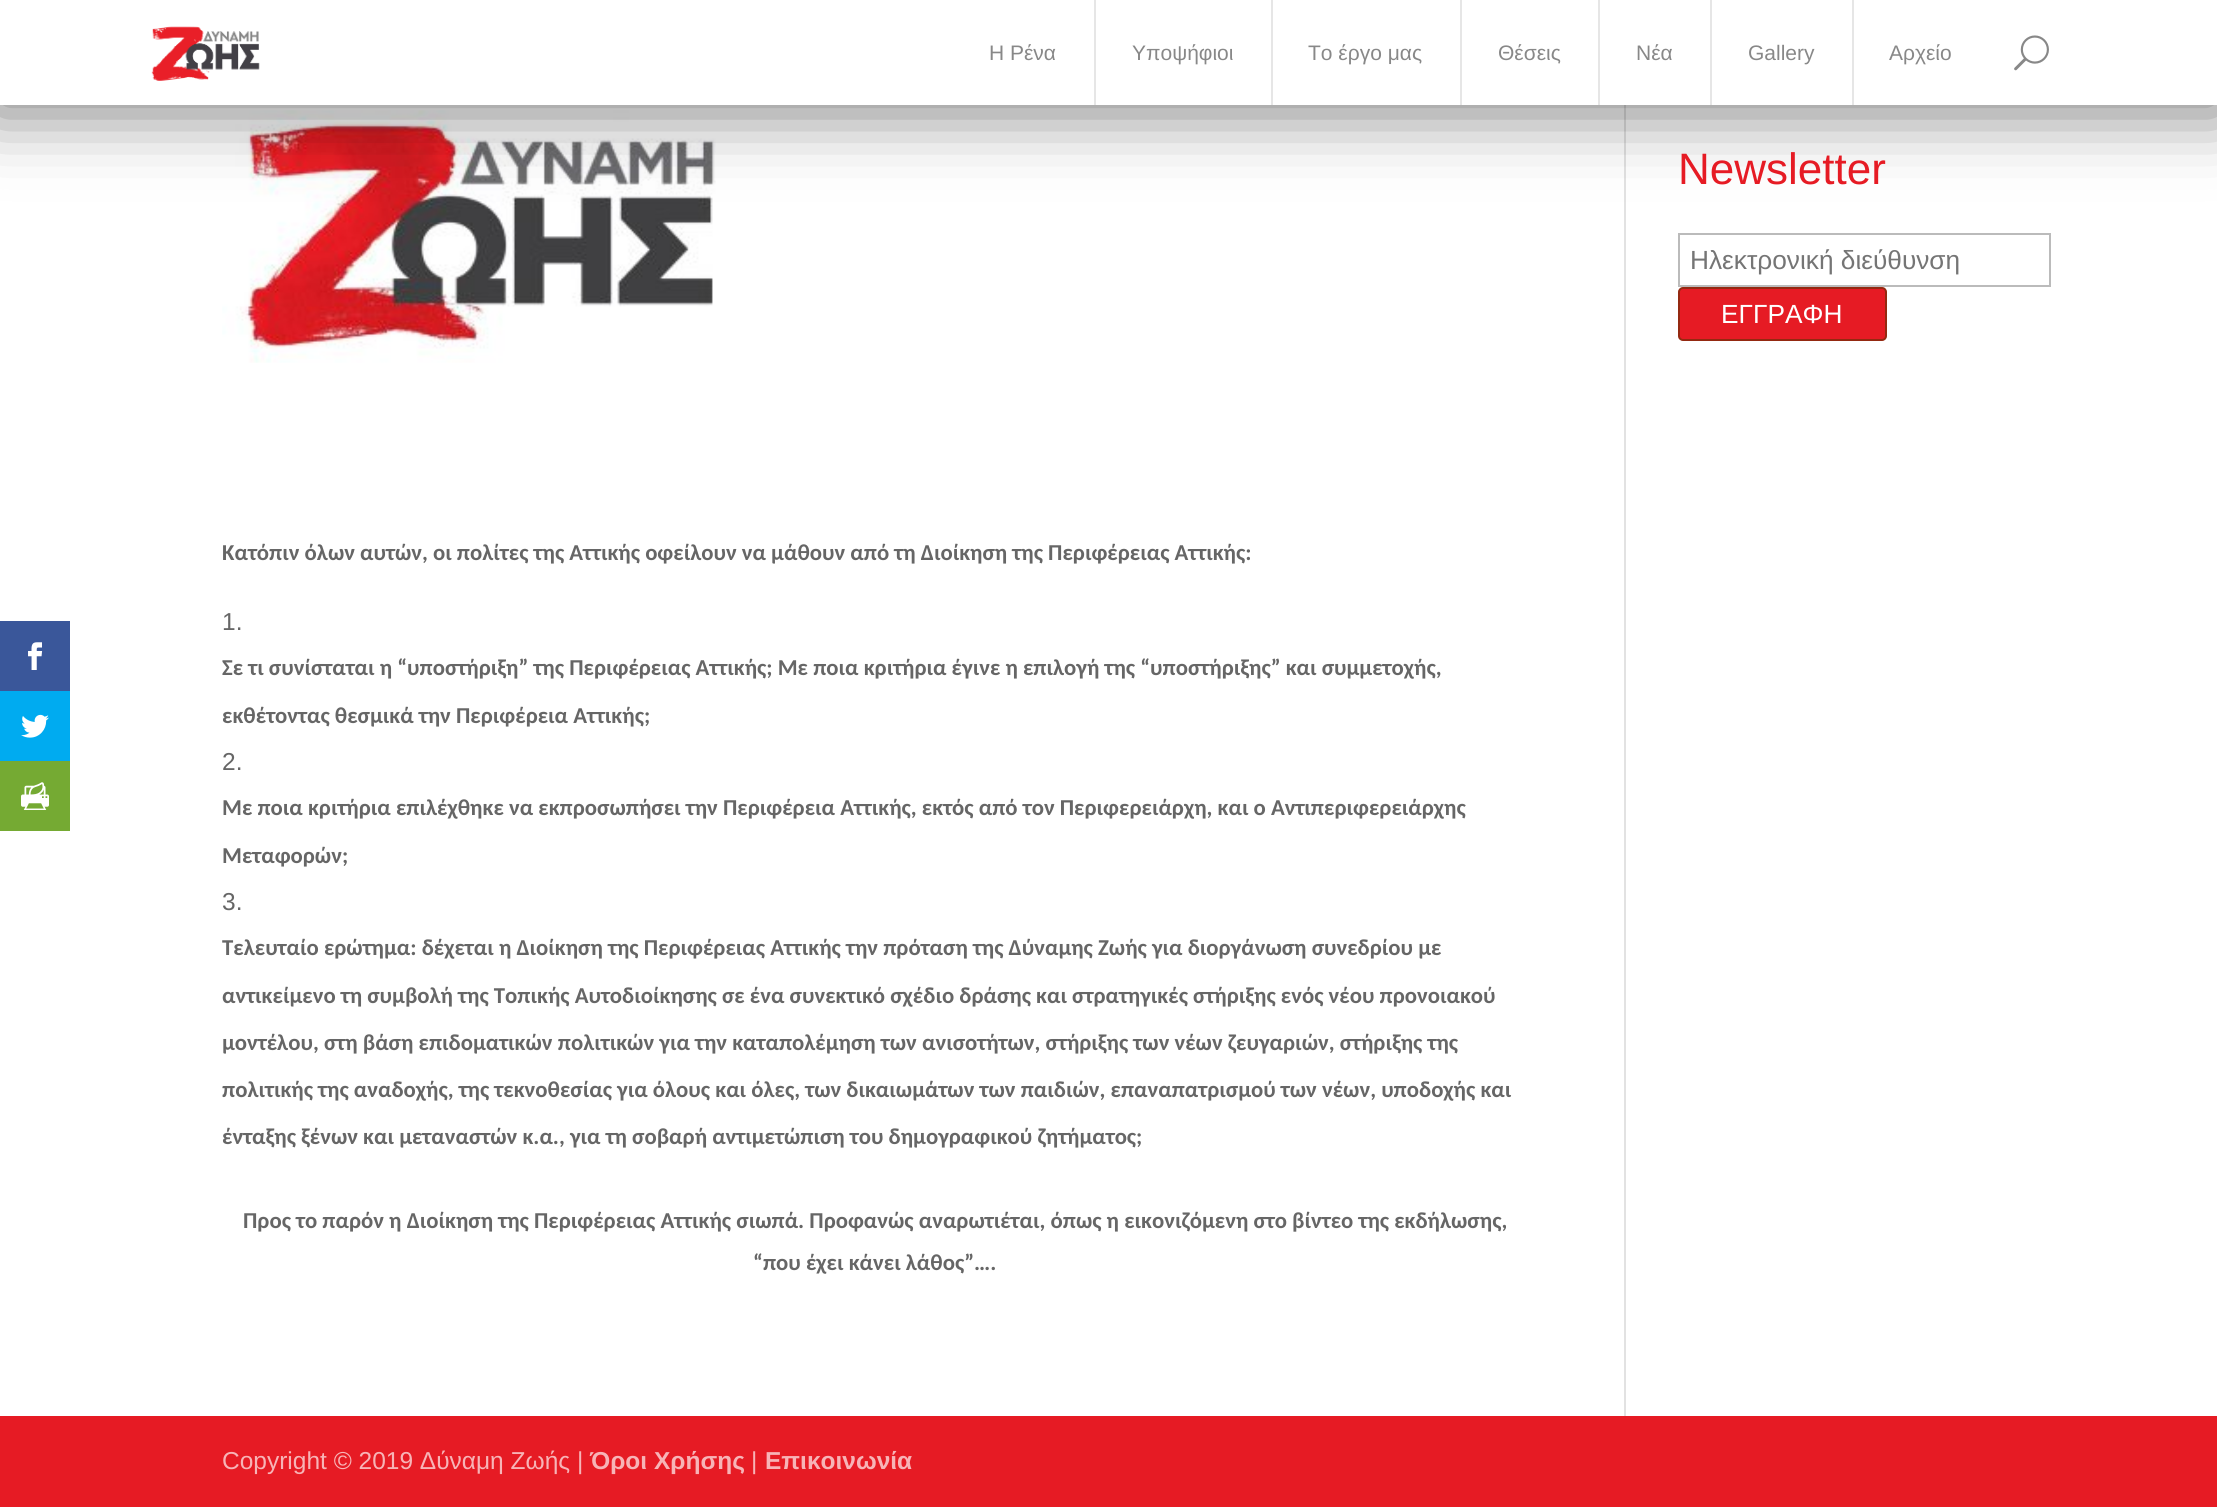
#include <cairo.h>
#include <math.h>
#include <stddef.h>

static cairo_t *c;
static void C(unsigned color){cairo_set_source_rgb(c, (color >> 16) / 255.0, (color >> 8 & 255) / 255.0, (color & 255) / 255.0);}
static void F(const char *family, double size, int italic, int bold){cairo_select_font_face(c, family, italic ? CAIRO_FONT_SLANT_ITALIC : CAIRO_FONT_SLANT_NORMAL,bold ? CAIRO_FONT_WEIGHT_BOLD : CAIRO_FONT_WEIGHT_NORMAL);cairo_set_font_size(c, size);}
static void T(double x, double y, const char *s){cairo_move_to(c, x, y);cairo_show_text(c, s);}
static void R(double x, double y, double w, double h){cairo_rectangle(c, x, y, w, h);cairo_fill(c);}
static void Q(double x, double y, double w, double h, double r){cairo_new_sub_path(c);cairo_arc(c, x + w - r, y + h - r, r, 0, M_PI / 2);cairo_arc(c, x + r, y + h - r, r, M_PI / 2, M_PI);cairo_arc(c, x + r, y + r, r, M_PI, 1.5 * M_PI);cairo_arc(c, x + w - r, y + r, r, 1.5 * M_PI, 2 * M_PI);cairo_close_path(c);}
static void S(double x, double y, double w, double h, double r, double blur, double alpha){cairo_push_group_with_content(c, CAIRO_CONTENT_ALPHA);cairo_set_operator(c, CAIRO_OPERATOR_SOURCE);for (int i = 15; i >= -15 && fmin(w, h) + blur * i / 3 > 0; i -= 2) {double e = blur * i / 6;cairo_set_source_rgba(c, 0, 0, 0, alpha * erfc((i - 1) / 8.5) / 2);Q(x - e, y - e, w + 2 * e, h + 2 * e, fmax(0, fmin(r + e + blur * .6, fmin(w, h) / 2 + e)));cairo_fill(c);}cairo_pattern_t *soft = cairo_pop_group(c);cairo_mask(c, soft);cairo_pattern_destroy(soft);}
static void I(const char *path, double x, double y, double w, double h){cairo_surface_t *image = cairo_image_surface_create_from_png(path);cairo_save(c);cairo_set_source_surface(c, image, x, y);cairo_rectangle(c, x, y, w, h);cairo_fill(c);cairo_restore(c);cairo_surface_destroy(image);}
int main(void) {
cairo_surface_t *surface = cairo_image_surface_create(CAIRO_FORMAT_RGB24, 2217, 1507);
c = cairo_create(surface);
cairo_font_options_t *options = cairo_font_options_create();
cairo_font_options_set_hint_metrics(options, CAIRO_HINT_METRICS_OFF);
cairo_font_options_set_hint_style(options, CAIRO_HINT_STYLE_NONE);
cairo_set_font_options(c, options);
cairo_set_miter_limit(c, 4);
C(0xffffff);
cairo_paint(c);
C(0xe2e2e2);
R(1624,105,2,1311);
I("6.png",222,110,494,253);
C(0x000000);
S(-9,-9,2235,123,0,35,.5);
C(0xffffff);
R(0,0,2217,105);
I("1.png",151,26,109,55);
F("Liberation Sans",21,0,0);
C(0x888888);
T(989,60,"Η Ρένα");
C(0xe6e6e6);
R(1094,0,2,105);
C(0x888888);
T(1132,60,"Υποψήφιοι");
C(0xe6e6e6);
R(1271,0,2,105);
C(0x888888);
T(1308,60,"Το έργο μας");
C(0xe6e6e6);
R(1460,0,2,105);
C(0x888888);
T(1498,60,"Θέσεις");
C(0xe6e6e6);
R(1598,0,2,105);
C(0x888888);
T(1636,60,"Νέα");
C(0xe6e6e6);
R(1710,0,2,105);
C(0x888888);
T(1748,60,"Gallery");
C(0xe6e6e6);
R(1852,0,2,105);
C(0x888888);
T(1889,60,"Αρχείο");
I("2.png",2014,35,35,36);
C(0x3a579a);
R(0,621,70,70);
I("3.png",28,642,15,28);
C(0x00abf0);
R(0,691,70,70);
I("4.png",21,714,28,24);
C(0x75aa33);
R(0,761,70,70);
I("5.png",21,782,28,28);
F("Liberation Sans",44,0,0);
C(0xe61b24);
T(1678,184,"Newsletter");
cairo_rectangle(c,1679,234,371,52);
C(0xbbbbbb);
cairo_stroke(c);
F("Liberation Sans",26.25,0,0);
C(0x757575);
T(1690,269,"Ηλεκτρονική διεύθυνση");
C(0xe61b24);
Q(1679,288,207,52,4);
cairo_fill_preserve(c);
C(0x942911);
cairo_stroke(c);
C(0xffffff);
T(1721,323,"ΕΓΓΡΑΦΗ");
F("Carlito",22.75,0,1);
C(0x666666);
T(222,560,"Κατόπιν όλων αυτών, οι πολίτες της Αττικής οφείλουν να μάθουν από τη Διοίκηση της Περιφέρειας Αττικής:");
F("Liberation Sans",24.5,0,0);
T(222,630,"1.");
F("Carlito",22.75,0,1);
T(222,675,"Σε τι συνίσταται η “υποστήριξη” της Περιφέρειας Αττικής; Με ποια κριτήρια έγινε η επιλογή της “υποστήριξης” και συμμετοχής,");
T(222,723,"εκθέτοντας θεσμικά την Περιφέρεια Αττικής;");
F("Liberation Sans",24.5,0,0);
T(222,770,"2.");
F("Carlito",22.75,0,1);
T(222,815,"Με ποια κριτήρια επιλέχθηκε να εκπροσωπήσει την Περιφέρεια Αττικής, εκτός από τον Περιφερειάρχη, και ο Αντιπεριφερειάρχης");
T(222,863,"Μεταφορών;");
F("Liberation Sans",24.5,0,0);
T(222,910,"3.");
F("Carlito",22.75,0,1);
T(222,955,"Τελευταίο ερώτημα: δέχεται η Διοίκηση της Περιφέρειας Αττικής την πρόταση της Δύναμης Ζωής για διοργάνωση συνεδρίου με");
T(222,1003,"αντικείμενο τη συμβολή της Τοπικής Αυτοδιοίκησης σε ένα συνεκτικό σχέδιο δράσης και στρατηγικές στήριξης ενός νέου προνοιακού");
T(222,1050,"μοντέλου, στη βάση επιδοματικών πολιτικών για την καταπολέμηση των ανισοτήτων, στήριξης των νέων ζευγαριών, στήριξης της");
T(222,1097,"πολιτικής της αναδοχής, της τεκνοθεσίας για όλους και όλες, των δικαιωμάτων των παιδιών, επαναπατρισμού των νέων, υποδοχής και");
T(222,1144,"ένταξης ξένων και μεταναστών κ.α., για τη σοβαρή αντιμετώπιση του δημογραφικού ζητήματος;");
T(243,1228,"Προς το παρόν η Διοίκηση της Περιφέρειας Αττικής σιωπά. Προφανώς αναρωτιέται, όπως η εικονιζόμενη στο βίντεο της εκδήλωσης,");
T(753,1270,"“που έχει κάνει λάθος”….");
C(0xe61b24);
R(0,1416,2217,91);
F("Liberation Sans",24.5,0,0);
C(0xf7b4b7);
T(222,1469,"Copyright © 2019 Δύναμη Ζωής |");
F("Liberation Sans",24.5,0,1);
T(590,1469,"Όροι Χρήσης");
F("Liberation Sans",24.5,0,0);
T(751,1469,"|");
F("Liberation Sans",24.5,0,1);
T(765,1469,"Επικοινωνία");
cairo_surface_write_to_png(surface, "o.png");
cairo_font_options_destroy(options);
cairo_destroy(c);
cairo_surface_destroy(surface);
return 0;
}
